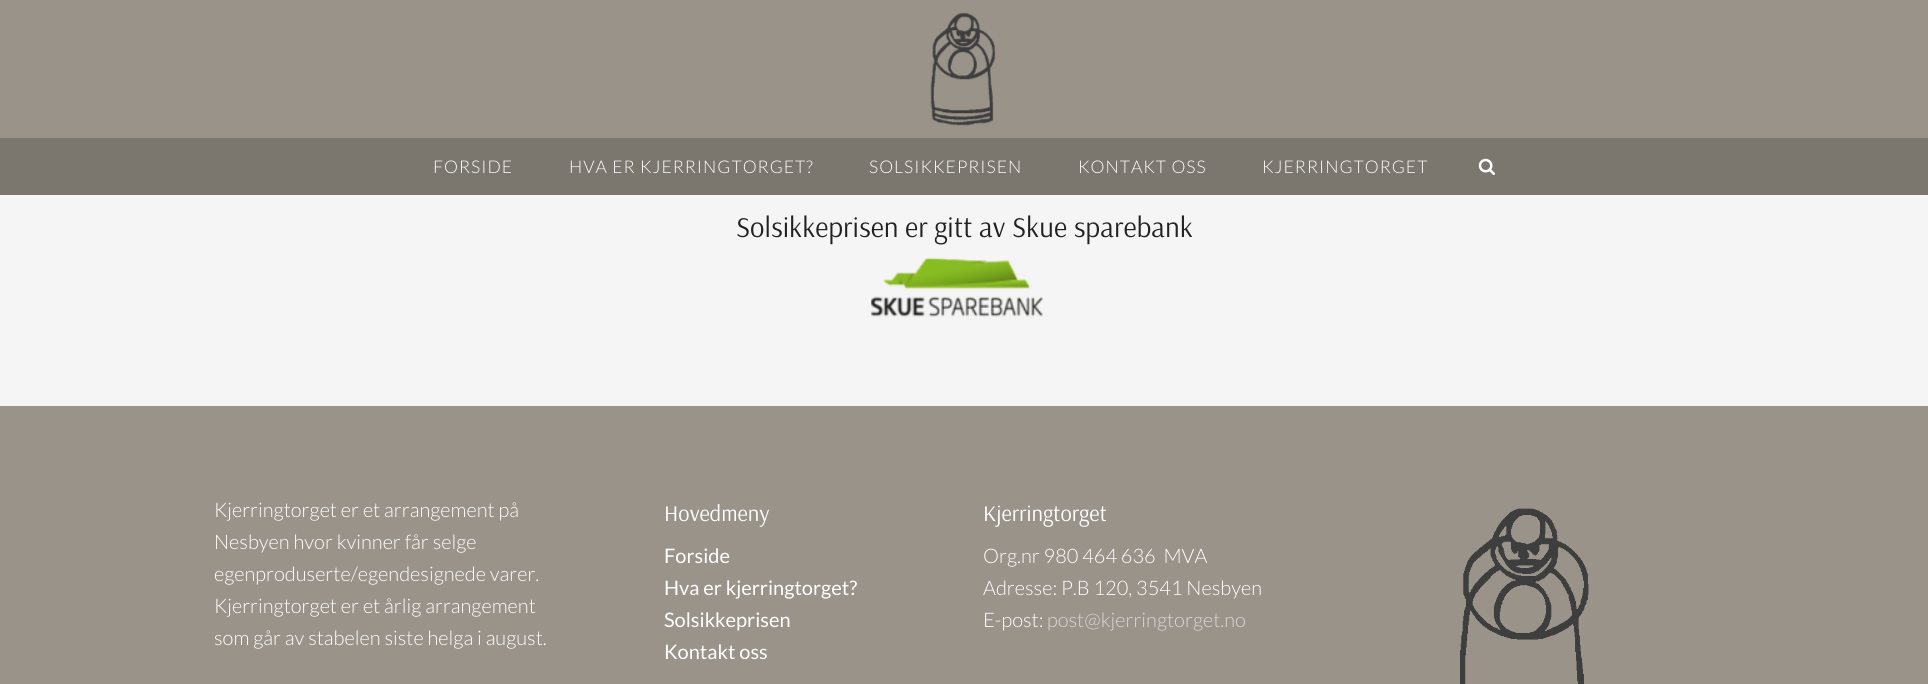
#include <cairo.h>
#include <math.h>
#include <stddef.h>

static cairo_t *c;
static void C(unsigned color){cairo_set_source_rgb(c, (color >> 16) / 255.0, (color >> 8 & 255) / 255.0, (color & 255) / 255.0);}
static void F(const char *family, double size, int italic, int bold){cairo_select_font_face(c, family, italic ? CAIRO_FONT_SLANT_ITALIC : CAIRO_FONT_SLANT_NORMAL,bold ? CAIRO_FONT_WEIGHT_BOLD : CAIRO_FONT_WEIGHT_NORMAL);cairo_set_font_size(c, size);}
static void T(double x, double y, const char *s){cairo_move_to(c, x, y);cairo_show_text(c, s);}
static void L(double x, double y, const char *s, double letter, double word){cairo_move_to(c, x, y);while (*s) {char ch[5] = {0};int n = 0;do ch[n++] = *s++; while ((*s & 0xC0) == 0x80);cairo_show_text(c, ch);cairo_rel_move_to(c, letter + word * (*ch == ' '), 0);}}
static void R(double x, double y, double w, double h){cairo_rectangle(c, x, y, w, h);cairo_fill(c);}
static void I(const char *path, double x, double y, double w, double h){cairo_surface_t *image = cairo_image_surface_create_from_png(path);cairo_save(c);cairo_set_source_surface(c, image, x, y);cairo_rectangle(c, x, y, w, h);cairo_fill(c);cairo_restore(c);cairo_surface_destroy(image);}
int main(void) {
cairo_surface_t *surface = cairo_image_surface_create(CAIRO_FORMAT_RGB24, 1928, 684);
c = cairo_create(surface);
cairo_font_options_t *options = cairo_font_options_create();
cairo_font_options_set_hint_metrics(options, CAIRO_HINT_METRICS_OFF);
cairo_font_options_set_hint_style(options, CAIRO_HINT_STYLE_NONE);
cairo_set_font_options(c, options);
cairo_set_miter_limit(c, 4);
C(0x9a938a);
cairo_paint(c);
I("1.png",930,13,66,113);
C(0x7b766e);
R(0,138,1928,57);
F("Lato Light",17.5,0,0);
C(0xffffff);
L(433,173,"FORSIDE",1,0);
L(569,173,"HVA ER KJERRINGTORGET?",1,0);
L(869,173,"SOLSIKKEPRISEN",1,0);
L(1078,173,"KONTAKT OSS",1,0);
L(1262,173,"KJERRINGTORGET",1,0);
I("2.png",1478,158,17,17);
C(0xf5f5f5);
R(0,195,1928,211);
F("Arsenal",28.75,0,0);
C(0x222222);
T(736,237,"Solsikkeprisen er gitt av Skue sparebank");
I("3.png",871,257,172,60);
F("Lato Light",20,0,0);
C(0xffffff);
T(214,517,"Kjerringtorget er et arrangement på");
T(214,549,"Nesbyen hvor kvinner får selge");
T(214,581,"egenproduserte/egendesignede varer.");
T(214,613,"Kjerringtorget er et årlig arrangement");
T(214,645,"som går av stabelen siste helga i august.");
F("Arsenal",22.5,0,0);
T(664,521,"Hovedmeny");
F("Lato",20,0,0);
T(664,563,"Forside");
T(664,595,"Hva er kjerringtorget?");
T(664,627,"Solsikkeprisen");
T(664,659,"Kontakt oss");
F("Arsenal",22.5,0,0);
T(983,521,"Kjerringtorget");
F("Lato Light",20,0,0);
T(983,563,"Org.nr 980 464 636  MVA");
T(983,595,"Adresse: P.B 120, 3541 Nesbyen");
T(983,627,"E-post:");
C(0xd7d7d7);
T(1047,627,"post@kjerringtorget.no");
I("4.png",1460,508,129,176);
cairo_surface_write_to_png(surface, "o.png");
cairo_font_options_destroy(options);
cairo_destroy(c);
cairo_surface_destroy(surface);
return 0;
}
